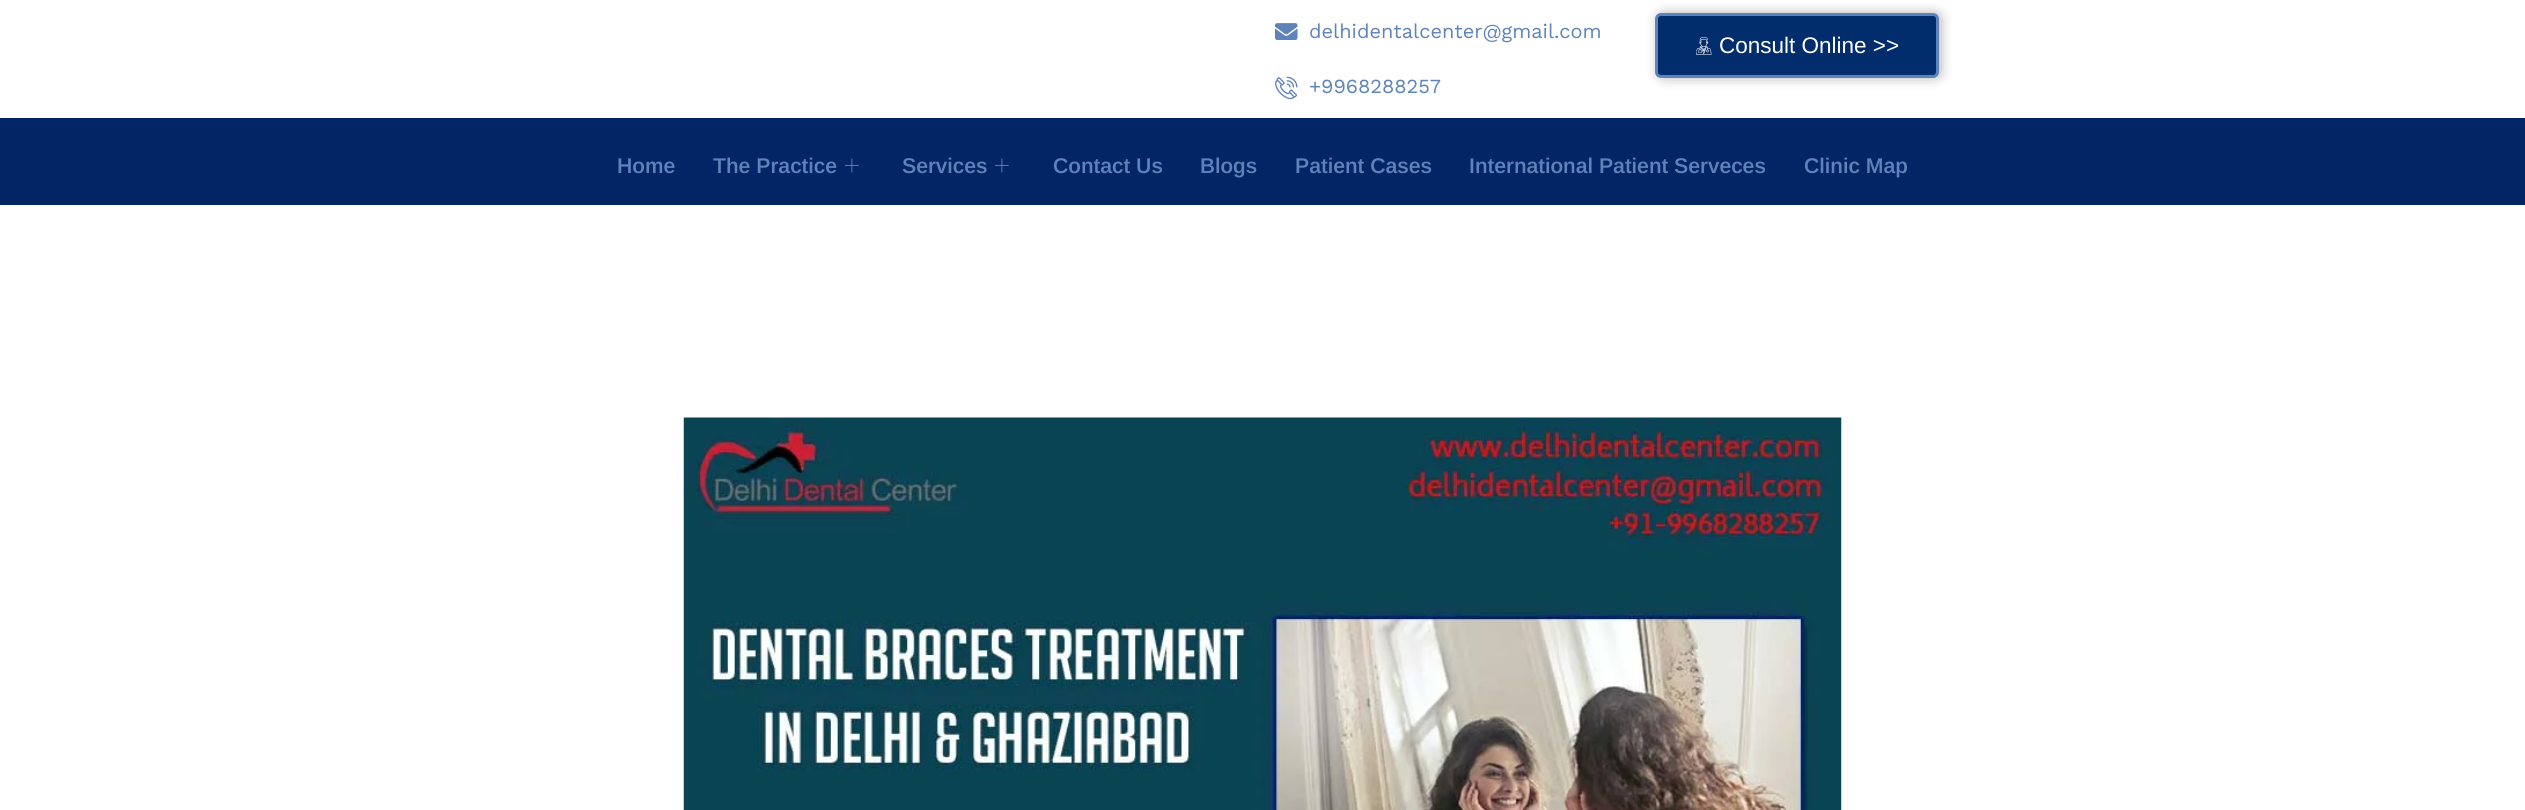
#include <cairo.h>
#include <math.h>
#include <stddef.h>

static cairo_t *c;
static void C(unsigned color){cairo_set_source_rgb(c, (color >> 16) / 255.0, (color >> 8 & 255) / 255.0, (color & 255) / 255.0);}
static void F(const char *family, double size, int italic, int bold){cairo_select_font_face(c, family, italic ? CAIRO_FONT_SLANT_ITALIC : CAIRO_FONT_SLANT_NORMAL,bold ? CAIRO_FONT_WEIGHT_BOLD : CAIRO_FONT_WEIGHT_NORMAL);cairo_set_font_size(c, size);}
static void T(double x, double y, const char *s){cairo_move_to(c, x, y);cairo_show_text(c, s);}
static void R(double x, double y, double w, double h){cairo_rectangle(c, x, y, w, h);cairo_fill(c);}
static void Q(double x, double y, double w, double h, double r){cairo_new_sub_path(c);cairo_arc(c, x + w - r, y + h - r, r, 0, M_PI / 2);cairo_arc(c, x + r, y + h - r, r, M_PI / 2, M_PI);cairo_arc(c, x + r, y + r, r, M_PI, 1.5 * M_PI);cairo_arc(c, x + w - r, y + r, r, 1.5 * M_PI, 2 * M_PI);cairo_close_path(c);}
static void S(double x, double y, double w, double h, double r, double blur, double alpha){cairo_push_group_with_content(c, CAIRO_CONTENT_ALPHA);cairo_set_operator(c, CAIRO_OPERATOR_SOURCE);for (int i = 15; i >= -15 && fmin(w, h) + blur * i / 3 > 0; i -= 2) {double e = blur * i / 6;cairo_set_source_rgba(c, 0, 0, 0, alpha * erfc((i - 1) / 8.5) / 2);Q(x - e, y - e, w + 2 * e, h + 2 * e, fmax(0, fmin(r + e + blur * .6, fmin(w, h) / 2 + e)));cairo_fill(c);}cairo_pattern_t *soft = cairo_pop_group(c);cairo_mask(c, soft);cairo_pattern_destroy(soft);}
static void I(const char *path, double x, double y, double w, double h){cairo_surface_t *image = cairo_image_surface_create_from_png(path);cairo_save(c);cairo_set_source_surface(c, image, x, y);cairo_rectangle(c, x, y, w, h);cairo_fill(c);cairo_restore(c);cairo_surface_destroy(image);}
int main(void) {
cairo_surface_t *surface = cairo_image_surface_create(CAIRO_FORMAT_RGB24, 2525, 810);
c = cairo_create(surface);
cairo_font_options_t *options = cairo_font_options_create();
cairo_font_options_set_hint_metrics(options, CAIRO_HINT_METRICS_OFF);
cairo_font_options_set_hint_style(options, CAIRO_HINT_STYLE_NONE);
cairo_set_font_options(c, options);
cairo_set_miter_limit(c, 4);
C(0xffffff);
cairo_paint(c);
I("1.png",1275,23,23,17);
F("Work Sans",20,0,0);
C(0x5e83ba);
T(1309,38,"delhidentalcenter@gmail.com");
I("2.png",1275,76,23,24);
T(1309,93,"+9968288257");
C(0x000000);
S(1658,13,283,65,6,6,.3);
C(0x022d6c);
Q(1656.5,14.5,281,62,4.5);
cairo_fill_preserve(c);
C(0x5e83ba);
cairo_set_line_width(c,3);
cairo_stroke(c);
I("3.png",1696,37,16,18);
F("Arimo",22.5,0,0);
C(0xffffff);
T(1719,53,"Consult Online >>");
C(0x022565);
R(0,118,2525,87);
F("Arimo SemiBold",21.25,0,0);
C(0x5e83ba);
T(617,173,"Home");
T(713,173,"The Practice");
I("4.png",845,158,14,15);
T(902,173,"Services");
I("4.png",995,158,14,15);
T(1053,173,"Contact Us");
T(1200,173,"Blogs");
T(1295,173,"Patient Cases");
T(1469,173,"International Patient Serveces");
T(1804,173,"Clinic Map");
I("5.png",683,417,1159,393);
cairo_surface_write_to_png(surface, "o.png");
cairo_font_options_destroy(options);
cairo_destroy(c);
cairo_surface_destroy(surface);
return 0;
}
